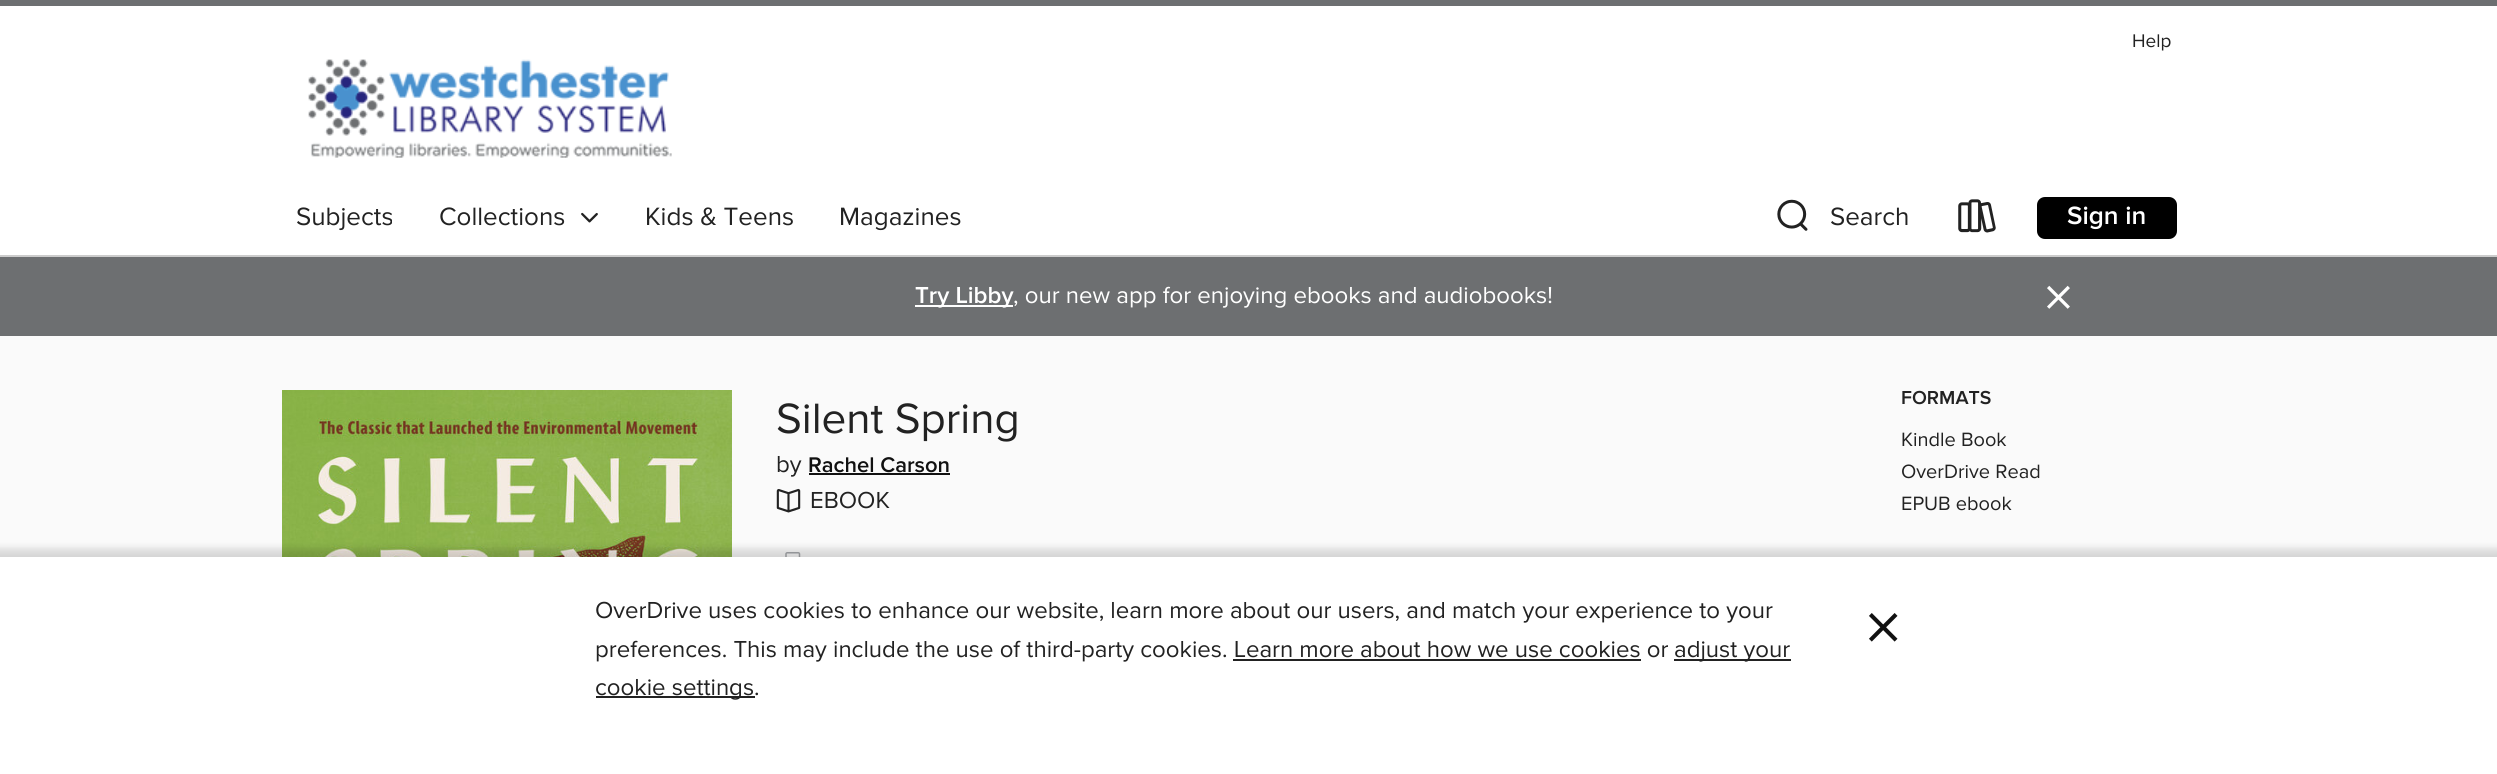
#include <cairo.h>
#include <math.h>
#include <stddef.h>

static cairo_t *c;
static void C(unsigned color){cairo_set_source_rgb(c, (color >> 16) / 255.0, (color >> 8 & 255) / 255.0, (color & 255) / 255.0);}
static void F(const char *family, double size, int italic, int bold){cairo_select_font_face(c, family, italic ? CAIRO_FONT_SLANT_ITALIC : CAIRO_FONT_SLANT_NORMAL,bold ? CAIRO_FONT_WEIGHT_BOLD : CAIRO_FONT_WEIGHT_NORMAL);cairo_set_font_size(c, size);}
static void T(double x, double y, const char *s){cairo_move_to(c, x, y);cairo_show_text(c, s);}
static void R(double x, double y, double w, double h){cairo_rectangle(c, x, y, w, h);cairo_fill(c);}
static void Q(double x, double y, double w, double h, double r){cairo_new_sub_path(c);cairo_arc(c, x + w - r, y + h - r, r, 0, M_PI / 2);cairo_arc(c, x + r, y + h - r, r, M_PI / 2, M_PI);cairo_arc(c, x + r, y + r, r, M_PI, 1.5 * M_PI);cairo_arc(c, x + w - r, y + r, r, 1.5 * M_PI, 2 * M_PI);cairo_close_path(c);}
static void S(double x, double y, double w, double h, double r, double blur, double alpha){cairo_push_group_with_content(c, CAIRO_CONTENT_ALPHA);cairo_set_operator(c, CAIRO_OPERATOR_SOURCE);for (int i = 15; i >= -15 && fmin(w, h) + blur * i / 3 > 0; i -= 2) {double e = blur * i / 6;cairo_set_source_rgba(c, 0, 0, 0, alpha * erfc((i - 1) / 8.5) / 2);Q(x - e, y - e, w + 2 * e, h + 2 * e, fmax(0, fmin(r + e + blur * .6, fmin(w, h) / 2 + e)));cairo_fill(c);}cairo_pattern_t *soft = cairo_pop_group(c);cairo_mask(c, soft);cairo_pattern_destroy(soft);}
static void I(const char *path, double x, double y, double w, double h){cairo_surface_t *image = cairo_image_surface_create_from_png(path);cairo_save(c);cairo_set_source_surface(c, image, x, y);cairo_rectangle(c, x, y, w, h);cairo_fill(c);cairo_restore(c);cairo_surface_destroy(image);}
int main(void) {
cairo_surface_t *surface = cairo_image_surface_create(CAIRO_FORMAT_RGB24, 2497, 774);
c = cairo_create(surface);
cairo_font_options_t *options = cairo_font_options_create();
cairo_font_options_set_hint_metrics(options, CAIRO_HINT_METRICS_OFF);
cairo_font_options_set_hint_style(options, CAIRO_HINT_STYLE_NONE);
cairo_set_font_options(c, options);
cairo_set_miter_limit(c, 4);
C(0xfafafa);
cairo_paint(c);
C(0xffffff);
R(0,6,2497,249);
C(0x6d6f71);
R(0,0,2497,6);
C(0xcccccc);
R(0,255,2497,2);
F("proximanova",19,0,0);
C(0x222222);
T(2132,47,"Help");
I("1.png",308,59,364,99);
F("proximanova",26,0,0);
T(296,225,"Subjects");
T(439,225,"Collections");
I("2.png",581,212,17,11);
T(645,225,"Kids & Teens");
T(839,225,"Magazines");
I("3.png",1777,199,31,32);
T(1830,225,"Search");
I("4.png",1958,199,38,34);
C(0x000000);
Q(2037,197,140,42,8);
cairo_fill(c);
F("Proxima Nova SemiBold",26,0,0);
C(0xffffff);
T(2067,224,"Sign in");
C(0x6d6f71);
R(0,257,2497,79);
C(0xffffff);
R(915,305,98,2);
F("Proxima Nova SemiBold",24,0,0);
T(915,303,"Try Libby");
F("proximanova",24,0,0);
T(1013,303,", our new app for enjoying ebooks and audiobooks!");
F("proximanova",62,0,0);
T(2043,318,"×");
I("5.png",282,390,450,167);
F("proximanova",44,0,0);
C(0x222222);
T(776,433,"Silent Spring");
F("proximanova",24,0,0);
T(776,472,"by");
F("Proxima Nova SemiBold",22,0,0);
C(0x111111);
T(808,472,"Rachel Carson");
R(809,473,141,2);
I("6.png",776,488,25,25);
F("proximanova",24,0,0);
C(0x222222);
T(810,508,"EBOOK");
I("7.png",785,552,16,5);
F("Proxima Nova SemiBold",19.5,0,0);
T(1901,404,"FORMATS");
F("proximanova",20,0,0);
T(1901,446,"Kindle Book");
T(1901,478,"OverDrive Read");
T(1901,510,"EPUB ebook");
C(0x000000);
S(-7,549,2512,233,0,4,.15);
C(0xffffff);
R(0,557,2497,217);
F("proximanova",24,0,0);
C(0x222222);
T(595,618,"OverDrive uses cookies to enhance our website, learn more about our users, and match your experience to your");
T(595,657,"preferences. This may include the use of third-party cookies. Learn more about how we use cookies or");
R(1233,659,408,2);
R(1674,659,117,2);
T(1674,657,"adjust your");
R(596,696,159,2);
T(595,695,"cookie settings.");
F("proximanova",77,0,0);
C(0x111111);
T(1864,653,"×");
cairo_surface_write_to_png(surface, "o.png");
cairo_font_options_destroy(options);
cairo_destroy(c);
cairo_surface_destroy(surface);
return 0;
}
